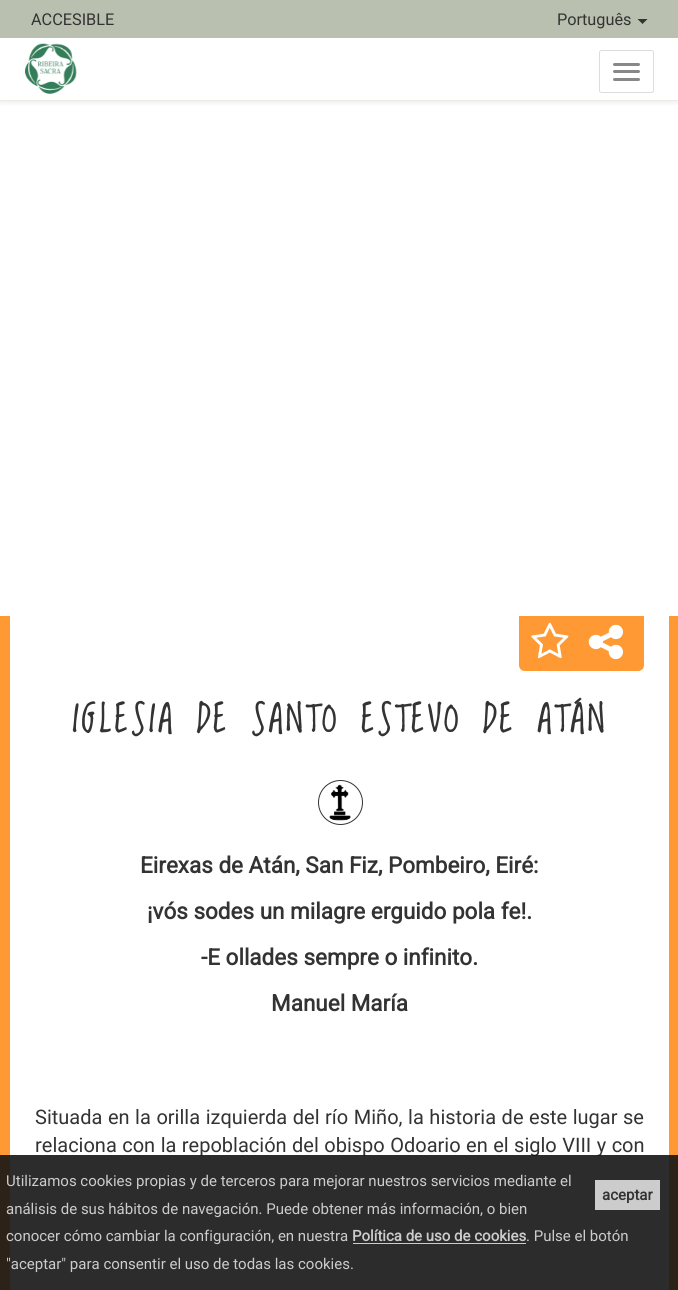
#include <cairo.h>
#include <math.h>
#include <stddef.h>

static cairo_t *c;
static void C(unsigned color){cairo_set_source_rgb(c, (color >> 16) / 255.0, (color >> 8 & 255) / 255.0, (color & 255) / 255.0);}
static void F(const char *family, double size, int italic, int bold){cairo_select_font_face(c, family, italic ? CAIRO_FONT_SLANT_ITALIC : CAIRO_FONT_SLANT_NORMAL,bold ? CAIRO_FONT_WEIGHT_BOLD : CAIRO_FONT_WEIGHT_NORMAL);cairo_set_font_size(c, size);}
static void T(double x, double y, const char *s){cairo_move_to(c, x, y);cairo_show_text(c, s);}
static void L(double x, double y, const char *s, double letter, double word){cairo_move_to(c, x, y);while (*s) {char ch[5] = {0};int n = 0;do ch[n++] = *s++; while ((*s & 0xC0) == 0x80);cairo_show_text(c, ch);cairo_rel_move_to(c, letter + word * (*ch == ' '), 0);}}
static void R(double x, double y, double w, double h){cairo_rectangle(c, x, y, w, h);cairo_fill(c);}
static void Q(double x, double y, double w, double h, double r){cairo_new_sub_path(c);cairo_arc(c, x + w - r, y + h - r, r, 0, M_PI / 2);cairo_arc(c, x + r, y + h - r, r, M_PI / 2, M_PI);cairo_arc(c, x + r, y + r, r, M_PI, 1.5 * M_PI);cairo_arc(c, x + w - r, y + r, r, 1.5 * M_PI, 2 * M_PI);cairo_close_path(c);}
static void S(double x, double y, double w, double h, double r, double blur, double alpha){cairo_push_group_with_content(c, CAIRO_CONTENT_ALPHA);cairo_set_operator(c, CAIRO_OPERATOR_SOURCE);for (int i = 15; i >= -15 && fmin(w, h) + blur * i / 3 > 0; i -= 2) {double e = blur * i / 6;cairo_set_source_rgba(c, 0, 0, 0, alpha * erfc((i - 1) / 8.5) / 2);Q(x - e, y - e, w + 2 * e, h + 2 * e, fmax(0, fmin(r + e + blur * .6, fmin(w, h) / 2 + e)));cairo_fill(c);}cairo_pattern_t *soft = cairo_pop_group(c);cairo_mask(c, soft);cairo_pattern_destroy(soft);}
static void I(const char *path, double x, double y, double w, double h){cairo_surface_t *image = cairo_image_surface_create_from_png(path);cairo_save(c);cairo_set_source_surface(c, image, x, y);cairo_rectangle(c, x, y, w, h);cairo_fill(c);cairo_restore(c);cairo_surface_destroy(image);}
int main(void) {
cairo_surface_t *surface = cairo_image_surface_create(CAIRO_FORMAT_RGB24, 678, 1290);
c = cairo_create(surface);
cairo_font_options_t *options = cairo_font_options_create();
cairo_font_options_set_hint_metrics(options, CAIRO_HINT_METRICS_OFF);
cairo_font_options_set_hint_style(options, CAIRO_HINT_STYLE_NONE);
cairo_set_font_options(c, options);
cairo_set_miter_limit(c, 4);
C(0xffffff);
cairo_paint(c);
cairo_save(c);
cairo_rectangle(c,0,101,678,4);
cairo_clip(c);
C(0x000000);
S(0,1,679,102,0,3,.07);
cairo_restore(c);
C(0xbac0af);
R(0,0,678,38);
F("Roboto",16.25,0,0);
C(0x333333);
T(31,25,"ACCESIBLE");
T(557,25,"Português");
cairo_new_path(c);
cairo_move_to(c,637.5,19);
cairo_line_to(c,647.5,19);
cairo_line_to(c,642.5,24);
cairo_close_path(c);
cairo_fill(c);
I("1.png",25,43,52,51);
Q(599.5,50.5,54,42,2);
C(0xdddddd);
cairo_set_line_width(c,1);
cairo_stroke(c);
C(0x888888);
Q(613,63,27,3,1.5);
cairo_fill(c);
Q(613,70,27,3,1.5);
cairo_fill(c);
Q(613,78,27,3,1.5);
cairo_fill(c);
C(0xeaede4);
R(0,100,678,1);
C(0xff9933);
R(669,616,9,674);
R(0,616,10,674);
cairo_new_path(c);
cairo_move_to(c,519,616);
cairo_line_to(c,644,616);
cairo_line_to(c,644,665);
cairo_curve_to(c,644,668.5,641.5,671,638,671);
cairo_line_to(c,525,671);
cairo_curve_to(c,521.5,671,519,668.5,519,665);
cairo_close_path(c);
cairo_fill(c);
I("2.png",531,622,38,37);
I("3.png",588,624,35,36);
F("Loved by the King",35,0,1);
C(0x333333);
L(72,732,"IGLESIA DE SANTO ESTEVO DE ATÁN",3.75,0);
cairo_new_path(c);
cairo_arc(c,340.5,802.5,22,0,2 * M_PI);
cairo_stroke(c);
I("4.png",329,784,22,37);
F("Roboto",22.5,0,1);
T(140,873,"Eirexas de Atán, San Fiz, Pombeiro, Eiré:");
T(147,919,"¡vós sodes un milagre erguido pola fe!.");
T(201,965,"-E ollades sempre o infinito.");
T(271,1011,"Manuel María");
F("Roboto",20,0,0);
L(35,1124,"Situada en la orilla izquierda del río Miño, la historia de este lugar se",0,.6);
L(35,1152,"relaciona con la repoblación del obispo Odoario en el siglo VIII y con",0,.5);
cairo_set_source_rgba(c,0.086,0.086,0.086,0.9);
R(0,1155,678,135);
F("Roboto",15,0,0);
C(0xcccccc);
T(6,1186,"Utilizamos cookies propias y de terceros para mejorar nuestros servicios mediante el");
R(595,1180,65,30);
F("Roboto",15,0,1);
C(0x333333);
T(602,1200,"aceptar");
F("Roboto",15,0,0);
C(0xcccccc);
T(6,1214,"análisis de sus hábitos de navegación. Puede obtener más información, o bien");
T(6,1241,"conocer cómo cambiar la configuración, en nuestra");
F("Roboto",15,0,1);
T(352,1241,"Política de uso de cookies");
R(353,1243,173,1);
F("Roboto",15,0,0);
T(526,1241,". Pulse el botón");
T(6,1269,"\"aceptar\" para consentir el uso de todas las cookies.");
cairo_surface_write_to_png(surface, "o.png");
cairo_font_options_destroy(options);
cairo_destroy(c);
cairo_surface_destroy(surface);
return 0;
}
